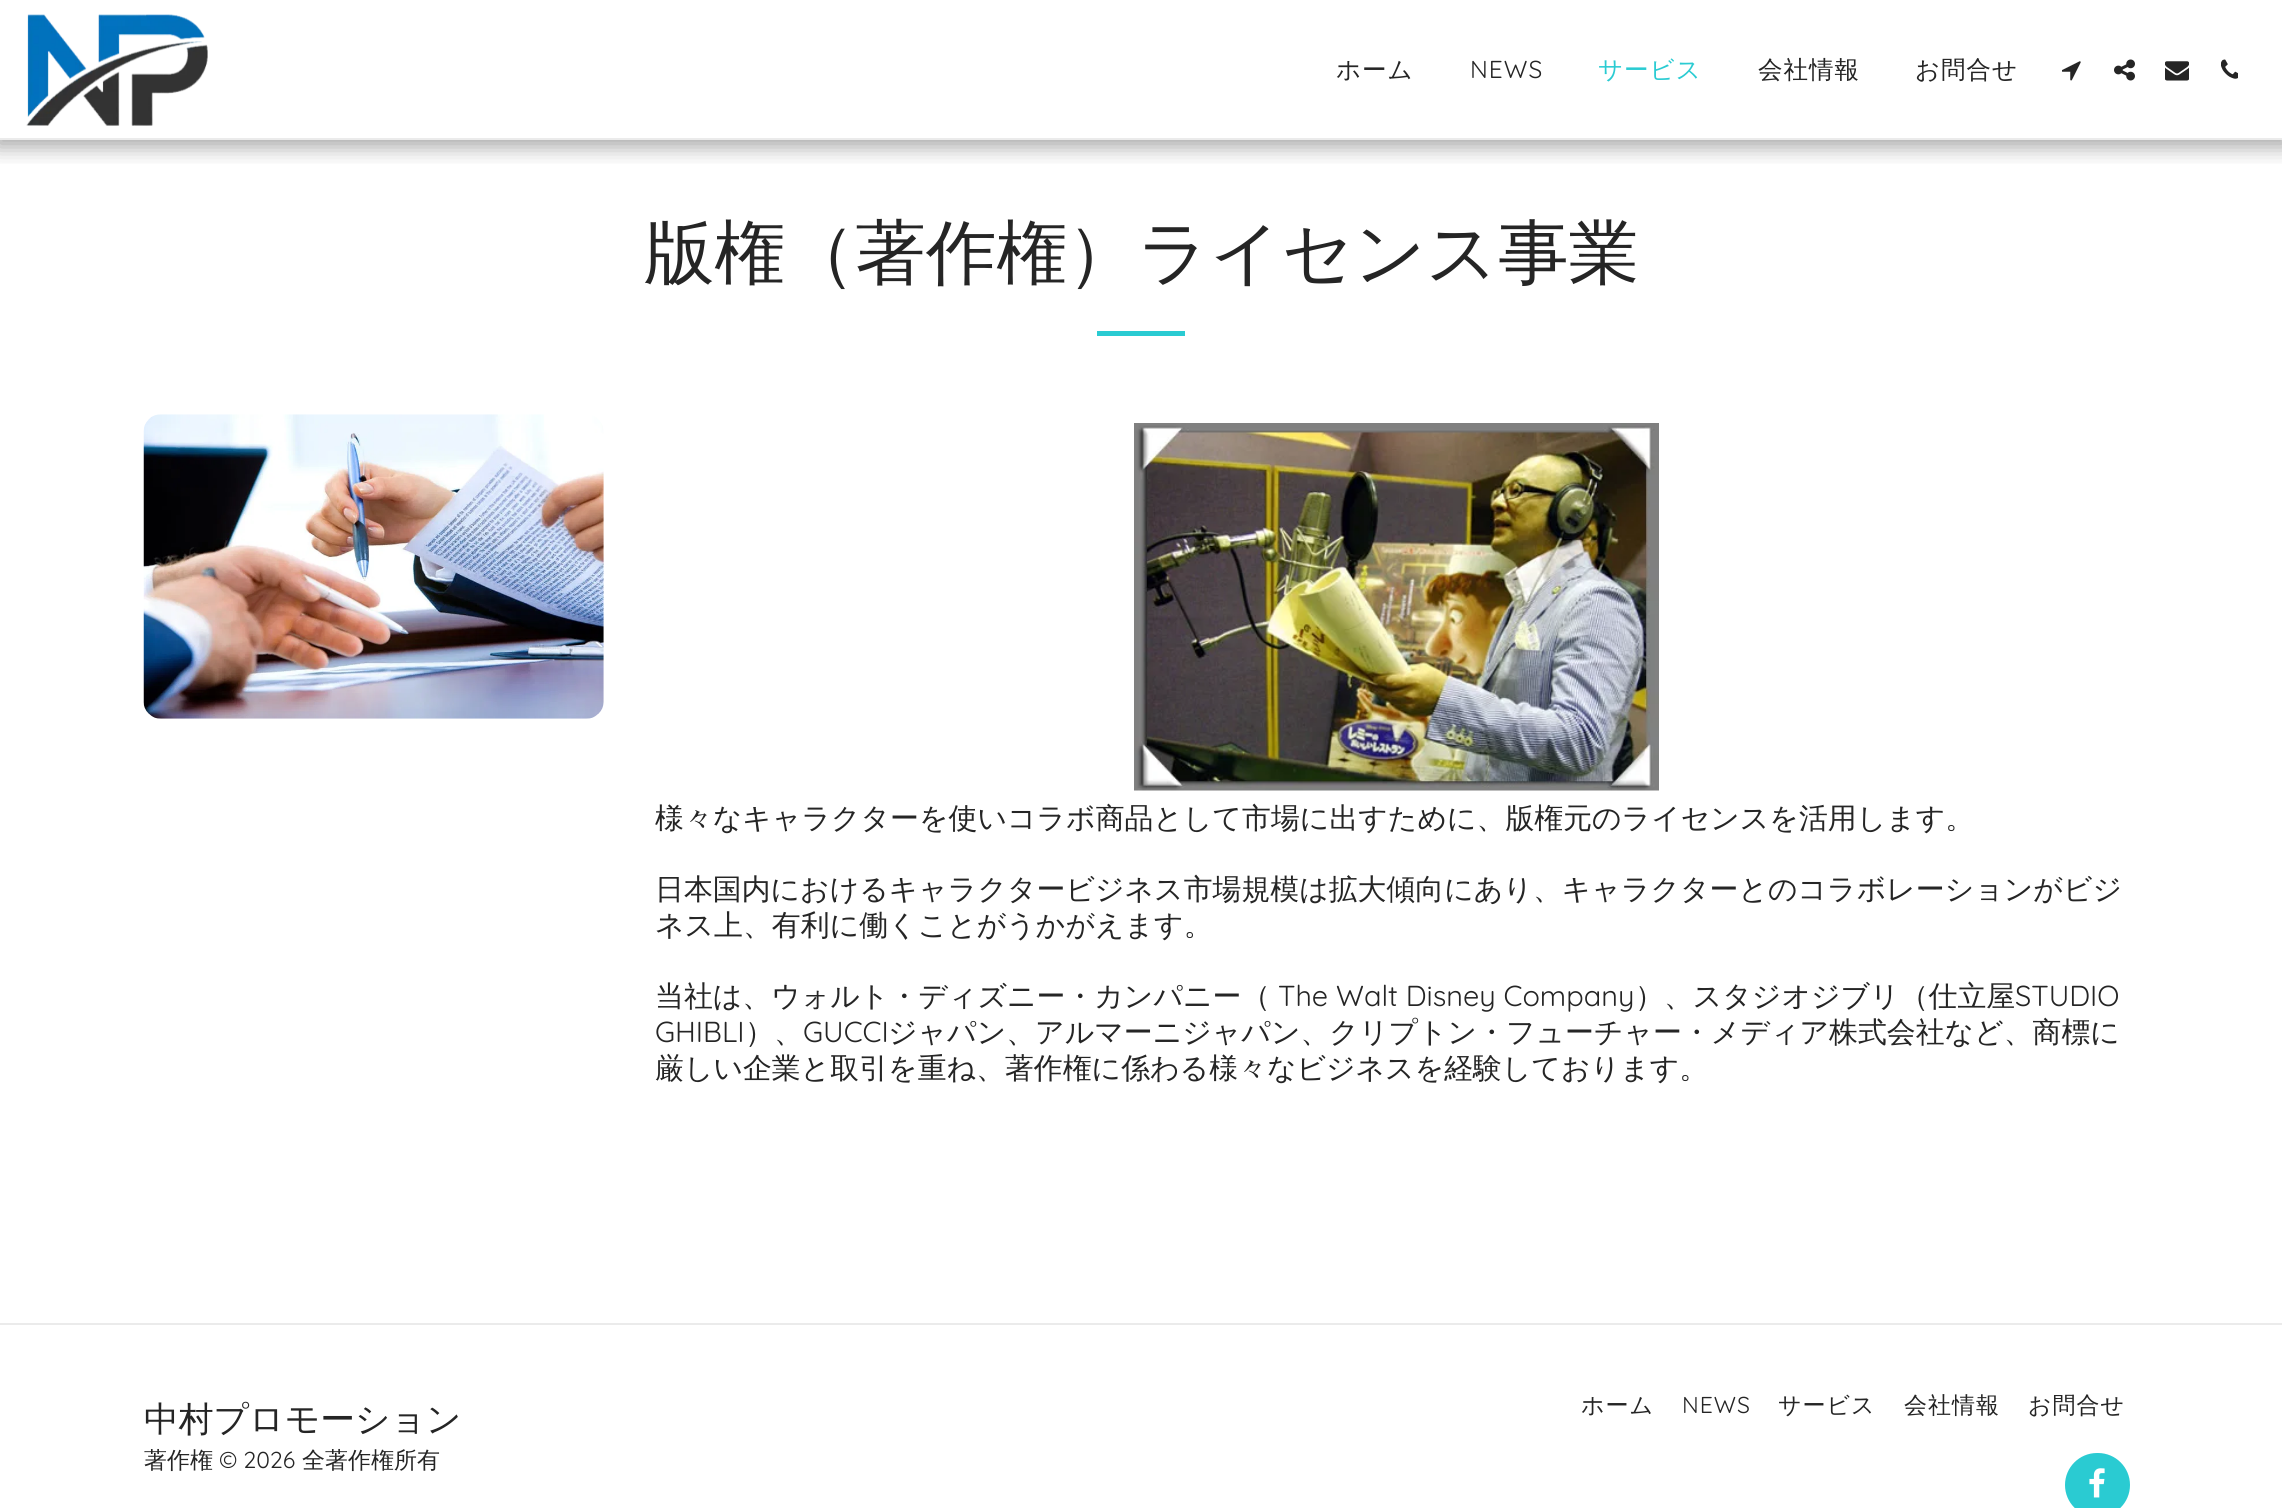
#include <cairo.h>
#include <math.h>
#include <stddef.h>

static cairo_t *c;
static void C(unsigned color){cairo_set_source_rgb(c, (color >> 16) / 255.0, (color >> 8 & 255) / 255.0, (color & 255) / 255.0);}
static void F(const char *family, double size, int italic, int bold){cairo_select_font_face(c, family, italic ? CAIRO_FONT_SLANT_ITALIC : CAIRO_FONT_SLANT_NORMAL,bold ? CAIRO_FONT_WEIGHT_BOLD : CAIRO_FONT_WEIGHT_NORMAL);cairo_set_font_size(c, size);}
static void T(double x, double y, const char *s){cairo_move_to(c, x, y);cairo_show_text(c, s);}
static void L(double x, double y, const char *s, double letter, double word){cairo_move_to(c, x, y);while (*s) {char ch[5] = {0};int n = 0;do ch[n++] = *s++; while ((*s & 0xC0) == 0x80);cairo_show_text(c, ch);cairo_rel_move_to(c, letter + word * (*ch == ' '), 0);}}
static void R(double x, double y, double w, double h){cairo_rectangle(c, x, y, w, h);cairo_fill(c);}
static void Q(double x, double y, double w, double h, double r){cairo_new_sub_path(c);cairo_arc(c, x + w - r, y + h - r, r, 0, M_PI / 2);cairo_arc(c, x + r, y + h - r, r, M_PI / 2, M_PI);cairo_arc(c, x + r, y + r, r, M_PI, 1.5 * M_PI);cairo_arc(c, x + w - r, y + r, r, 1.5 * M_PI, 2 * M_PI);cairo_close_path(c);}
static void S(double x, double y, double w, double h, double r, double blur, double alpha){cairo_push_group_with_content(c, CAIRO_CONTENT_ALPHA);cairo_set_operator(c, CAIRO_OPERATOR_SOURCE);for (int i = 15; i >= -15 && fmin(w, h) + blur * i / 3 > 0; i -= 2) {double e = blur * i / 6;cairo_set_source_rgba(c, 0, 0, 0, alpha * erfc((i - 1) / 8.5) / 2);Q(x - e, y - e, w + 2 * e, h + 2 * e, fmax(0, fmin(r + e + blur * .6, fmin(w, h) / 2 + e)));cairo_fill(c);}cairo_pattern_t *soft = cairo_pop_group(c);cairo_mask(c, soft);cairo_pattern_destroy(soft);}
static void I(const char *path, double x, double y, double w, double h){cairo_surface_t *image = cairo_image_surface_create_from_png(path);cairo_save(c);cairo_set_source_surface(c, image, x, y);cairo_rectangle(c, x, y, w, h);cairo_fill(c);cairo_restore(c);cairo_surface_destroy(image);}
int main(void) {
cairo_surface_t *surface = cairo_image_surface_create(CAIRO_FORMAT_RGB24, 2282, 1508);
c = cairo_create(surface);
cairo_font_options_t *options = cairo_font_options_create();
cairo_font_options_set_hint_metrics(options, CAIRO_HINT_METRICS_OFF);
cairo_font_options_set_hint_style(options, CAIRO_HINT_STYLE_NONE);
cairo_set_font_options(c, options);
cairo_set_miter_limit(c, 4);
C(0xffffff);
cairo_paint(c);
cairo_save(c);
cairo_rectangle(c,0,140,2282,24);
cairo_clip(c);
C(0x000000);
S(-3,0,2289,147,0,10.5,.35);
cairo_restore(c);
C(0xebebeb);
R(0,138,2282,2);
I("1.png",26,14,182,112);
F("WenQuanYi Zen Hei Medium",24.5,0,0);
C(0x252525);
L(1336,78,"ホーム",1,0);
F("Quicksand",24.5,0,0);
L(1470,78,"NEWS",1,0);
F("WenQuanYi Zen Hei Medium",24.5,0,0);
C(0x2acbd2);
L(1598,78,"サービス",1,0);
C(0x252525);
L(1758,78,"会社情報",1,0);
L(1915,78,"お問合せ",1,0);
I("2.png",2062,61,19,20);
I("3.png",2114,59,21,22);
I("4.png",2165,61,24,20);
I("5.png",2221,59,17,20);
F("WenQuanYi Zen Hei Medium",70.5,0,0);
T(644,277,"版権（著作権）ライセンス事業");
C(0x2acbd2);
R(1097,331,88,5);
I("6.png",143,414,461,305);
I("7.png",1134,423,525,368);
F("WenQuanYi Zen Hei Medium",28.88,0,0);
C(0x252525);
T(655,828,"様々なキャラクターを使いコラボ商品として市場に出すために、版権元のライセンスを活用します。");
T(655,899,"日本国内におけるキャラクタービジネス市場規模は拡大傾向にあり、キャラクターとのコラボレーションがビジ");
T(655,935,"ネス上、有利に働くことがうかがえます。");
T(655,1006,"当社は、ウォルト・ディズニー・カンパニー（");
F("Quicksand",28.88,0,0);
T(1278,1006,"The Walt Disney Company");
F("WenQuanYi Zen Hei Medium",28.88,0,0);
T(1635,1006,"）、スタジオジブリ（仕立屋");
F("Quicksand",28.88,0,0);
T(2015,1006,"STUDIO");
T(655,1042,"GHIBLI");
F("WenQuanYi Zen Hei Medium",28.88,0,0);
T(745,1042,"）、");
F("Quicksand",28.88,0,0);
T(803,1042,"GUCCI");
F("WenQuanYi Zen Hei Medium",28.88,0,0);
T(888,1042,"ジャパン、アルマーニジャパン、クリプトン・フューチャー・メディア株式会社など、商標に");
T(655,1078,"厳しい企業と取引を重ね、著作権に係わる様々なビジネスを経験しております。");
C(0xebebeb);
R(0,1323,2282,2);
F("WenQuanYi Zen Hei Medium",34.75,0,0);
C(0x252525);
T(144,1431,"中村プロモーション");
F("WenQuanYi Zen Hei Medium",23,0,0);
T(144,1468,"著作権");
F("Quicksand",23,0,0);
T(219,1468,"© 2026");
F("WenQuanYi Zen Hei Medium",23,0,0);
T(302,1468,"全著作権所有");
L(1581,1413,"ホーム",1,0);
F("Quicksand",23,0,0);
L(1682,1413,"NEWS",1,0);
F("WenQuanYi Zen Hei Medium",23,0,0);
L(1778,1413,"サービス",1,0);
L(1904,1413,"会社情報",1,0);
L(2028,1413,"お問合せ",1,0);
C(0x2acbd2);
Q(2066,1454,63,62,31);
cairo_fill_preserve(c);
cairo_stroke(c);
I("8.png",2089,1468,16,30);
cairo_surface_write_to_png(surface, "o.png");
cairo_font_options_destroy(options);
cairo_destroy(c);
cairo_surface_destroy(surface);
return 0;
}
